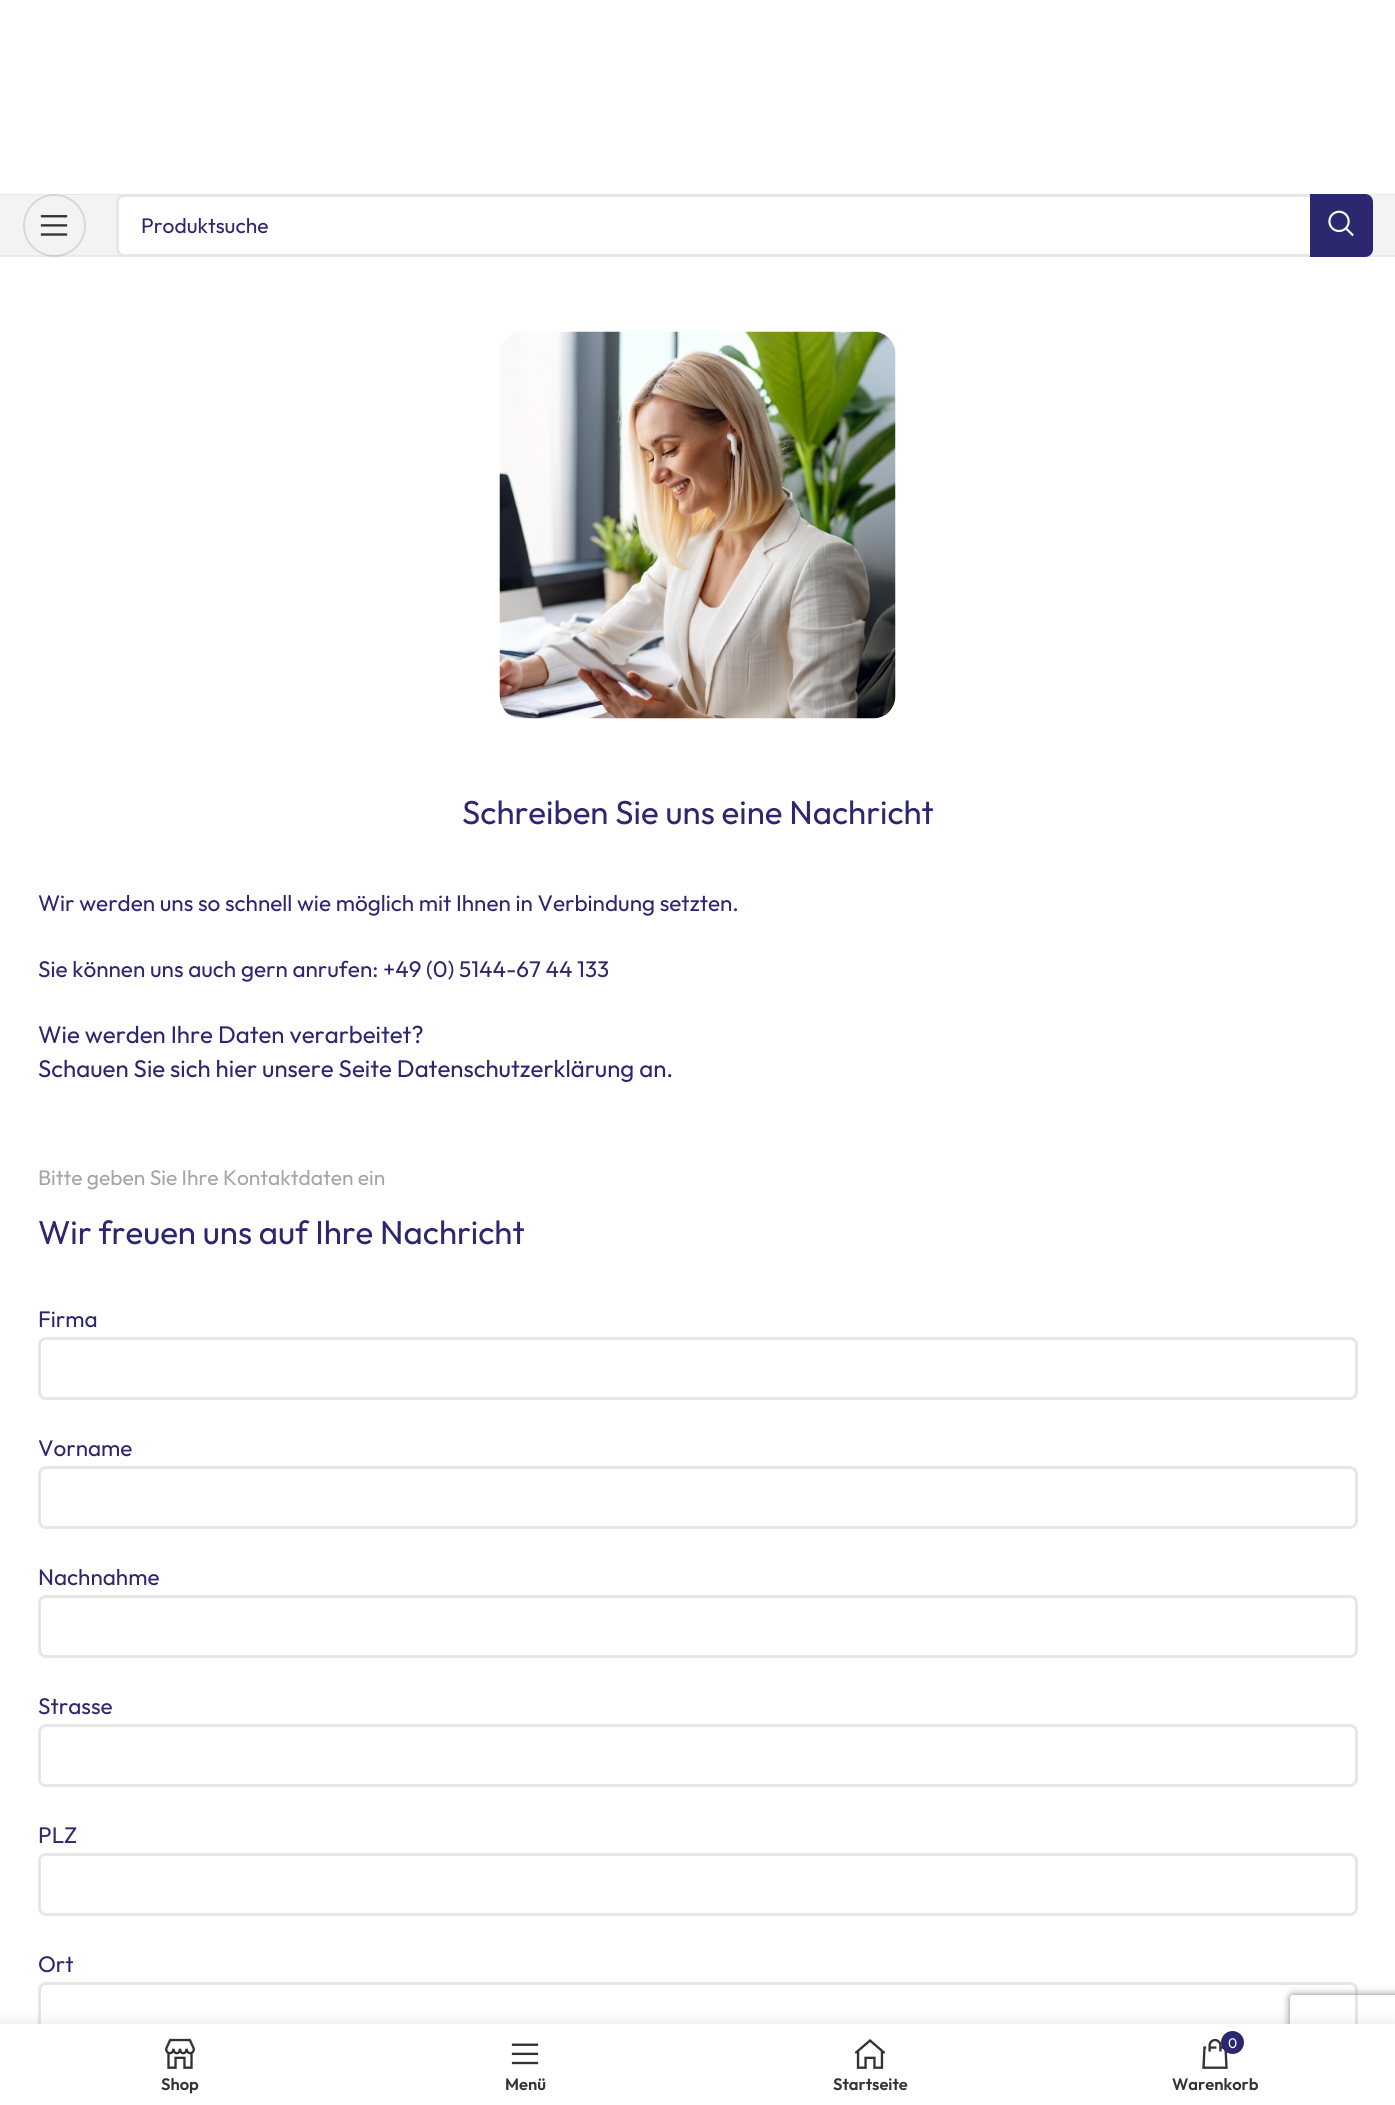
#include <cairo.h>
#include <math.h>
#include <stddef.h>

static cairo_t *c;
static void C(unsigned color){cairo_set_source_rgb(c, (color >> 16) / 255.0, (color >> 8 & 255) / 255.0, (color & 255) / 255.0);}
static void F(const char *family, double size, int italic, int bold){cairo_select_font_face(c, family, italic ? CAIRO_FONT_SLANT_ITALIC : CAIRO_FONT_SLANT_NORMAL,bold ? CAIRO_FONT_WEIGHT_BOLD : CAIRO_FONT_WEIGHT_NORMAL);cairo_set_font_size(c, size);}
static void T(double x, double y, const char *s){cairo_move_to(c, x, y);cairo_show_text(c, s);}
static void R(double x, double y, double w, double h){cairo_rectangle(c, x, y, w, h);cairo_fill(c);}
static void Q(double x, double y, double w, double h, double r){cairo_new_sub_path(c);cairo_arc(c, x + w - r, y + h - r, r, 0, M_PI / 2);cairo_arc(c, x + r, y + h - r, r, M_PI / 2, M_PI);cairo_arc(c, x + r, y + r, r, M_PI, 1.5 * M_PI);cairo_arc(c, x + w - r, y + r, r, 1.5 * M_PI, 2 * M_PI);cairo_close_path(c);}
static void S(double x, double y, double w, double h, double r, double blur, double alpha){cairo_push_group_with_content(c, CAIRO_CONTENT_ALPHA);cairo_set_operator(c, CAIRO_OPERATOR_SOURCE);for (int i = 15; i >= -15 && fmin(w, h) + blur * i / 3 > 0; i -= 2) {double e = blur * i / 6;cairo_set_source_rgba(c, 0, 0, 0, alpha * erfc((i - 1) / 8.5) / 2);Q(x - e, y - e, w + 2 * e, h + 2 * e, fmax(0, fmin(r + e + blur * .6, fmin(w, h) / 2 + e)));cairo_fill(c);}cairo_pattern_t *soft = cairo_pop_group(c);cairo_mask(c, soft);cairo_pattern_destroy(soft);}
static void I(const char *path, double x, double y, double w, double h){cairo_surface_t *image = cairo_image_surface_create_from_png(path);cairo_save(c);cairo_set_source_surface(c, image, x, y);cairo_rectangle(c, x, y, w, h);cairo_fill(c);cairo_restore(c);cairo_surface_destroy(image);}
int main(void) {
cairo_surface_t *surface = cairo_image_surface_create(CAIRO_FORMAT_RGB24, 1395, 2105);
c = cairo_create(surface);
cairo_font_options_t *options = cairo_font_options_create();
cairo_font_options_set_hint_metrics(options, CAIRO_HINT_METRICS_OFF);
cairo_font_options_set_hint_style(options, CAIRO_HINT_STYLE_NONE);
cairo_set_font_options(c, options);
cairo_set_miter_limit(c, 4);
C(0xffffff);
cairo_paint(c);
C(0xe8e8e8);
R(0,194,1395,1);
C(0xf3f3f3);
R(0,195,1395,60);
C(0xe8e8e8);
R(0,255,1395,2);
cairo_arc(c,54.5,225.5,30.5,0,2 * M_PI);
cairo_set_source_rgba(c,0,0,0,0.11);
cairo_stroke(c);
I("1.png",40,215,28,21);
C(0xffffff);
Q(116,194,1257,63,8);
cairo_fill(c);
Q(117.5,195.5,1254,60,6.5);
cairo_set_source_rgba(c,0,0,0,0.1);
cairo_set_line_width(c,3);
cairo_stroke(c);
F("Outfit",21,0,0);
C(0x2c2870);
T(141,233,"Produktsuche");
cairo_new_path(c);
cairo_move_to(c,1310,194);
cairo_line_to(c,1365,194);
cairo_curve_to(c,1369.5,194,1373,197.5,1373,202);
cairo_line_to(c,1373,249);
cairo_curve_to(c,1373,253.5,1369.5,257,1365,257);
cairo_line_to(c,1310,257);
cairo_close_path(c);
cairo_fill(c);
I("2.png",1328,210,26,27);
I("3.png",499,331,397,388);
F("Outfit",33,0,0);
T(462,824,"Schreiben Sie uns eine Nachricht");
F("Outfit",22.5,0,0);
T(38,911,"Wir werden uns so schnell wie möglich mit Ihnen in Verbindung setzten.");
T(38,977,"Sie können uns auch gern anrufen: +49 (0) 5144-67 44 133");
F("Outfit",24,0,0);
T(38,1043,"Wie werden Ihre Daten verarbeitet?");
T(38,1077,"Schauen Sie sich hier unsere Seite Datenschutzerklärung an.");
F("Outfit",21,0,0);
C(0xa5a5a5);
T(38,1185,"Bitte geben Sie Ihre Kontaktdaten ein");
F("Outfit",33,0,0);
C(0x2c2870);
T(38,1244,"Wir freuen uns auf Ihre Nachricht");
F("Outfit",22.5,0,0);
T(38,1327,"Firma");
Q(39.5,1338.5,1317,60,6.5);
C(0xe6e6e6);
cairo_stroke(c);
C(0x2c2870);
T(38,1456,"Vorname");
Q(39.5,1467.5,1317,60,6.5);
C(0xe6e6e6);
cairo_stroke(c);
C(0x2c2870);
T(38,1585,"Nachnahme");
Q(39.5,1596.5,1317,60,6.5);
C(0xe6e6e6);
cairo_stroke(c);
C(0x2c2870);
T(38,1714,"Strasse");
Q(39.5,1725.5,1317,60,6.5);
C(0xe6e6e6);
cairo_stroke(c);
C(0x2c2870);
T(38,1843,"PLZ");
Q(39.5,1854.5,1317,60,6.5);
C(0xe6e6e6);
cairo_stroke(c);
C(0x2c2870);
T(38,1972,"Ort");
Q(39.5,1983.5,1317,60,6.5);
C(0xe6e6e6);
cairo_stroke(c);
C(0x000000);
S(0,2024,1395,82,0,7,.12);
cairo_save(c);
cairo_set_fill_rule(c,CAIRO_FILL_RULE_EVEN_ODD);
cairo_new_path(c);
cairo_move_to(c,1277,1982);
cairo_line_to(c,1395,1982);
cairo_line_to(c,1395,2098);
cairo_line_to(c,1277,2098);
cairo_close_path(c);
cairo_move_to(c,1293,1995);
cairo_line_to(c,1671,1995);
cairo_curve_to(c,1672.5,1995,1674,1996.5,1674,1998);
cairo_line_to(c,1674,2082);
cairo_curve_to(c,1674,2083.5,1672.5,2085,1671,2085);
cairo_line_to(c,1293,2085);
cairo_curve_to(c,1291.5,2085,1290,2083.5,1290,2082);
cairo_line_to(c,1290,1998);
cairo_curve_to(c,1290,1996.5,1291.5,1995,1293,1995);
cairo_close_path(c);
cairo_clip(c);
C(0x808080);
S(1290,1995,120,90,3,4,1);
cairo_restore(c);
C(0xffffff);
R(0,2024,1395,81);
I("4.png",165,2038,30,31);
F("Outfit SemiBold",16.5,0,0);
C(0x333333);
T(161,2090,"Shop");
I("5.png",511,2043,28,22);
T(505,2090,"Menü");
I("6.png",855,2039,30,30);
T(833,2090,"Startseite");
I("7.png",1202,2038,26,31);
C(0x2c2870);
cairo_arc(c,1232.5,2042.5,11.5,0,2 * M_PI);
cairo_fill(c);
F("Outfit",14,0,0);
C(0xffffff);
T(1228,2048,"0");
F("Outfit SemiBold",16.5,0,0);
C(0x333333);
T(1172,2090,"Warenkorb");
cairo_surface_write_to_png(surface, "o.png");
cairo_font_options_destroy(options);
cairo_destroy(c);
cairo_surface_destroy(surface);
return 0;
}
